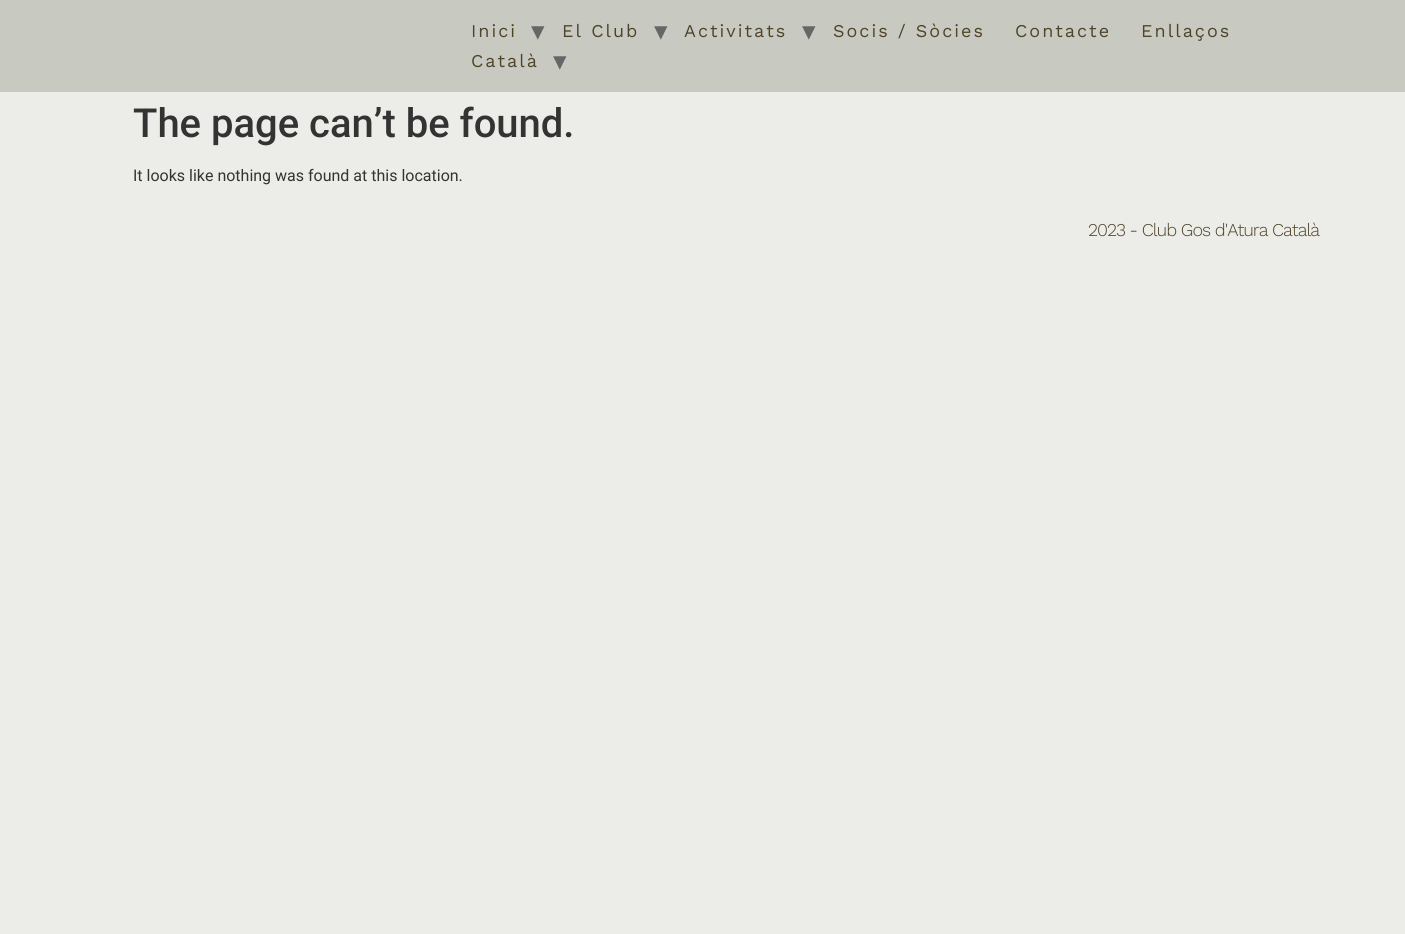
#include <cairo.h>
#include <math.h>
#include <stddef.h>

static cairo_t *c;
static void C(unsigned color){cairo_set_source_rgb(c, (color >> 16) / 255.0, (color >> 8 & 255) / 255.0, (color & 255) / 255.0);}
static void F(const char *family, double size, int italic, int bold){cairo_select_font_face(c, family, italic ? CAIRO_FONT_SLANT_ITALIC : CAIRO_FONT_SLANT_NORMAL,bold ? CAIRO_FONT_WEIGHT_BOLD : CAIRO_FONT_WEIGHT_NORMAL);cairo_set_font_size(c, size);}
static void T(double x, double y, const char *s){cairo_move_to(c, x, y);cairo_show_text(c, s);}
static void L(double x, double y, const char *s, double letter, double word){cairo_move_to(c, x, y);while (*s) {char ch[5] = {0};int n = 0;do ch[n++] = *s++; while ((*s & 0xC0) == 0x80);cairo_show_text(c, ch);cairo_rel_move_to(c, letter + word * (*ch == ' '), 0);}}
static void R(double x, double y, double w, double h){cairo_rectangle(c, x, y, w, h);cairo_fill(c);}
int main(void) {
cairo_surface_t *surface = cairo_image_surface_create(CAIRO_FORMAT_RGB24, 1405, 934);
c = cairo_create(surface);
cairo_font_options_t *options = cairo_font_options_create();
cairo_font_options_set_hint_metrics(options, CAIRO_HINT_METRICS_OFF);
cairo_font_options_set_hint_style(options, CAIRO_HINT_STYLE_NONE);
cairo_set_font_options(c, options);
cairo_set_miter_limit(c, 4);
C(0xecede8);
cairo_paint(c);
C(0xc8cac1);
R(0,0,1405,92);
F("Work Sans",18,0,0);
C(0x4f4429);
L(471,37,"Inici",2,0);
F("DejaVu Sans",27,0,0);
C(0x666666);
L(531,40,"▾",2,0);
F("Work Sans",18,0,0);
C(0x4f4429);
L(562,37,"El Club",2,0);
F("DejaVu Sans",27,0,0);
C(0x666666);
L(654,40,"▾",2,0);
F("Work Sans",18,0,0);
C(0x4f4429);
L(684,37,"Activitats",2,0);
F("DejaVu Sans",27,0,0);
C(0x666666);
L(802,40,"▾",2,0);
F("Work Sans",18,0,0);
C(0x4f4429);
L(833,37,"Socis / Sòcies",2,0);
L(1015,37,"Contacte",2,0);
L(1141,37,"Enllaços",2,0);
L(471,67,"Català",2,0);
F("DejaVu Sans",27,0,0);
C(0x666666);
L(553,70,"▾",2,0);
F("Roboto Medium",40,0,0);
C(0x333333);
T(133,137,"The page can’t be found.");
F("Roboto",16,0,0);
T(133,181,"It looks like nothing was found at this location.");
F("Work Sans Light",18,0,0);
C(0x4f4429);
L(1088,236,"2023 - Club Gos d'Atura Català",-1,0);
cairo_surface_write_to_png(surface, "o.png");
cairo_font_options_destroy(options);
cairo_destroy(c);
cairo_surface_destroy(surface);
return 0;
}
